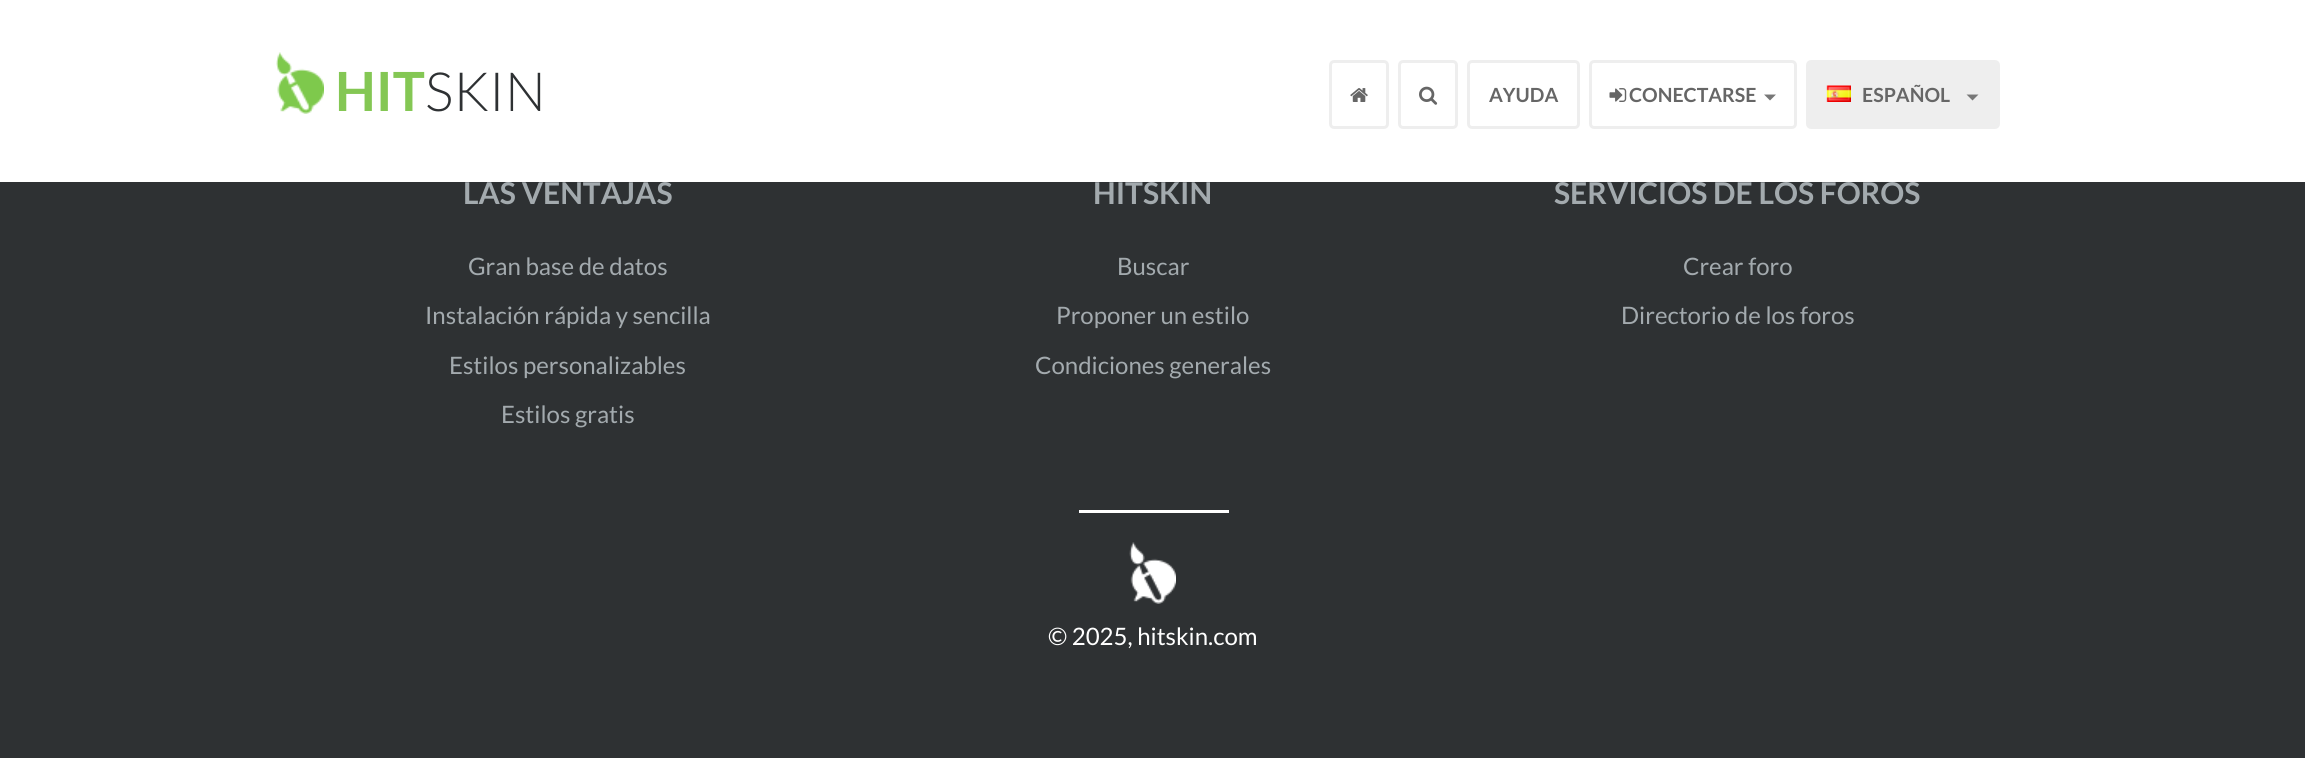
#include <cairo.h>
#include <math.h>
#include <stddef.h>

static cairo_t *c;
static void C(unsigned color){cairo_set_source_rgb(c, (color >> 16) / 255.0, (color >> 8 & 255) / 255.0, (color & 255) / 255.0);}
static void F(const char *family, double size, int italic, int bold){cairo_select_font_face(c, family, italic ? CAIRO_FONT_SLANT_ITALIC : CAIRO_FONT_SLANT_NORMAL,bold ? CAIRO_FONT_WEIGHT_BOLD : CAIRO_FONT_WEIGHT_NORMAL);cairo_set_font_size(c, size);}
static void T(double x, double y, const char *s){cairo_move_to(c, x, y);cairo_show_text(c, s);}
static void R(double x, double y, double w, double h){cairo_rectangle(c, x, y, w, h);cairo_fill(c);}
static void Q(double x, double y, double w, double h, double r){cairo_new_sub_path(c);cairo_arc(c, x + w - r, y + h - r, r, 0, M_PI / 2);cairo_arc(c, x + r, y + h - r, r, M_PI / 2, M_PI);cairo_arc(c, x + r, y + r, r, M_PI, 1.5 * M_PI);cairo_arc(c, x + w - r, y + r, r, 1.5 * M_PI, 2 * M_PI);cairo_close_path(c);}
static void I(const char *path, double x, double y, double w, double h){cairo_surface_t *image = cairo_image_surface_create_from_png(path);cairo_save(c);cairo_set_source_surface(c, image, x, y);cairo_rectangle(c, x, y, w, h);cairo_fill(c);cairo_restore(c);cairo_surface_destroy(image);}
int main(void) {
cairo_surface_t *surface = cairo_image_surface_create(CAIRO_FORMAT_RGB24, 2305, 758);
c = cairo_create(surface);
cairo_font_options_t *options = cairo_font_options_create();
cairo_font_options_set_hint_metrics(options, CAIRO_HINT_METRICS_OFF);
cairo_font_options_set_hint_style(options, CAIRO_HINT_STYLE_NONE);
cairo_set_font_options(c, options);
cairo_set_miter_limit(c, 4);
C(0x2e3133);
cairo_paint(c);
C(0xffffff);
R(0,0,2305,182);
I("1.png",276,52,48,62);
F("Lato",54,0,1);
C(0x84c754);
T(335,111,"HIT");
F("Lato Light",54,0,0);
C(0x2e3133);
T(425,111,"SKIN");
Q(1330.5,61.5,57,66,3.5);
C(0xeeeeee);
cairo_set_line_width(c,3);
cairo_stroke(c);
I("2.png",1350,88,18,14);
Q(1399.5,61.5,57,66,3.5);
cairo_stroke(c);
I("3.png",1419,86,19,19);
Q(1468.5,61.5,110,66,3.5);
cairo_stroke(c);
F("Lato",19.5,0,1);
C(0x666666);
T(1489,102,"AYUDA");
Q(1590.5,61.5,205,66,3.5);
C(0xeeeeee);
cairo_stroke(c);
I("4.png",1609,88,18,14);
C(0x666666);
T(1629,102,"CONECTARSE");
C(0x777777);
cairo_new_path(c);
cairo_move_to(c,1764,94.5);
cairo_line_to(c,1776,94.5);
cairo_line_to(c,1770,100.5);
cairo_close_path(c);
cairo_fill(c);
C(0xeeeeee);
Q(1807.5,61.5,191,66,3.5);
cairo_fill_preserve(c);
cairo_stroke(c);
I("5.png",1826,85,25,17);
C(0x666666);
T(1862,102,"ESPAÑOL");
C(0x777777);
cairo_new_path(c);
cairo_move_to(c,1966.5,94.5);
cairo_line_to(c,1978.5,94.5);
cairo_line_to(c,1972.5,100.5);
cairo_close_path(c);
cairo_fill(c);
F("Lato",30,0,1);
C(0xa3aaae);
T(463,204,"LAS VENTAJAS");
F("Lato",24,0,0);
T(468,275,"Gran base de datos");
T(425,324,"Instalación rápida y sencilla");
T(449,374,"Estilos personalizables");
T(501,423,"Estilos gratis");
F("Lato",30,0,1);
T(1093,204,"HITSKIN");
F("Lato",24,0,0);
T(1117,275,"Buscar");
T(1056,324,"Proponer un estilo");
T(1035,374,"Condiciones generales");
F("Lato",30,0,1);
T(1554,204,"SERVICIOS DE LOS FOROS");
F("Lato",24,0,0);
T(1683,275,"Crear foro");
T(1621,324,"Directorio de los foros");
C(0xffffff);
R(1079,510,150,3);
I("6.png",1129,542,47,62);
T(1048,645,"© 2025, hitskin.com");
cairo_surface_write_to_png(surface, "o.png");
cairo_font_options_destroy(options);
cairo_destroy(c);
cairo_surface_destroy(surface);
return 0;
}
